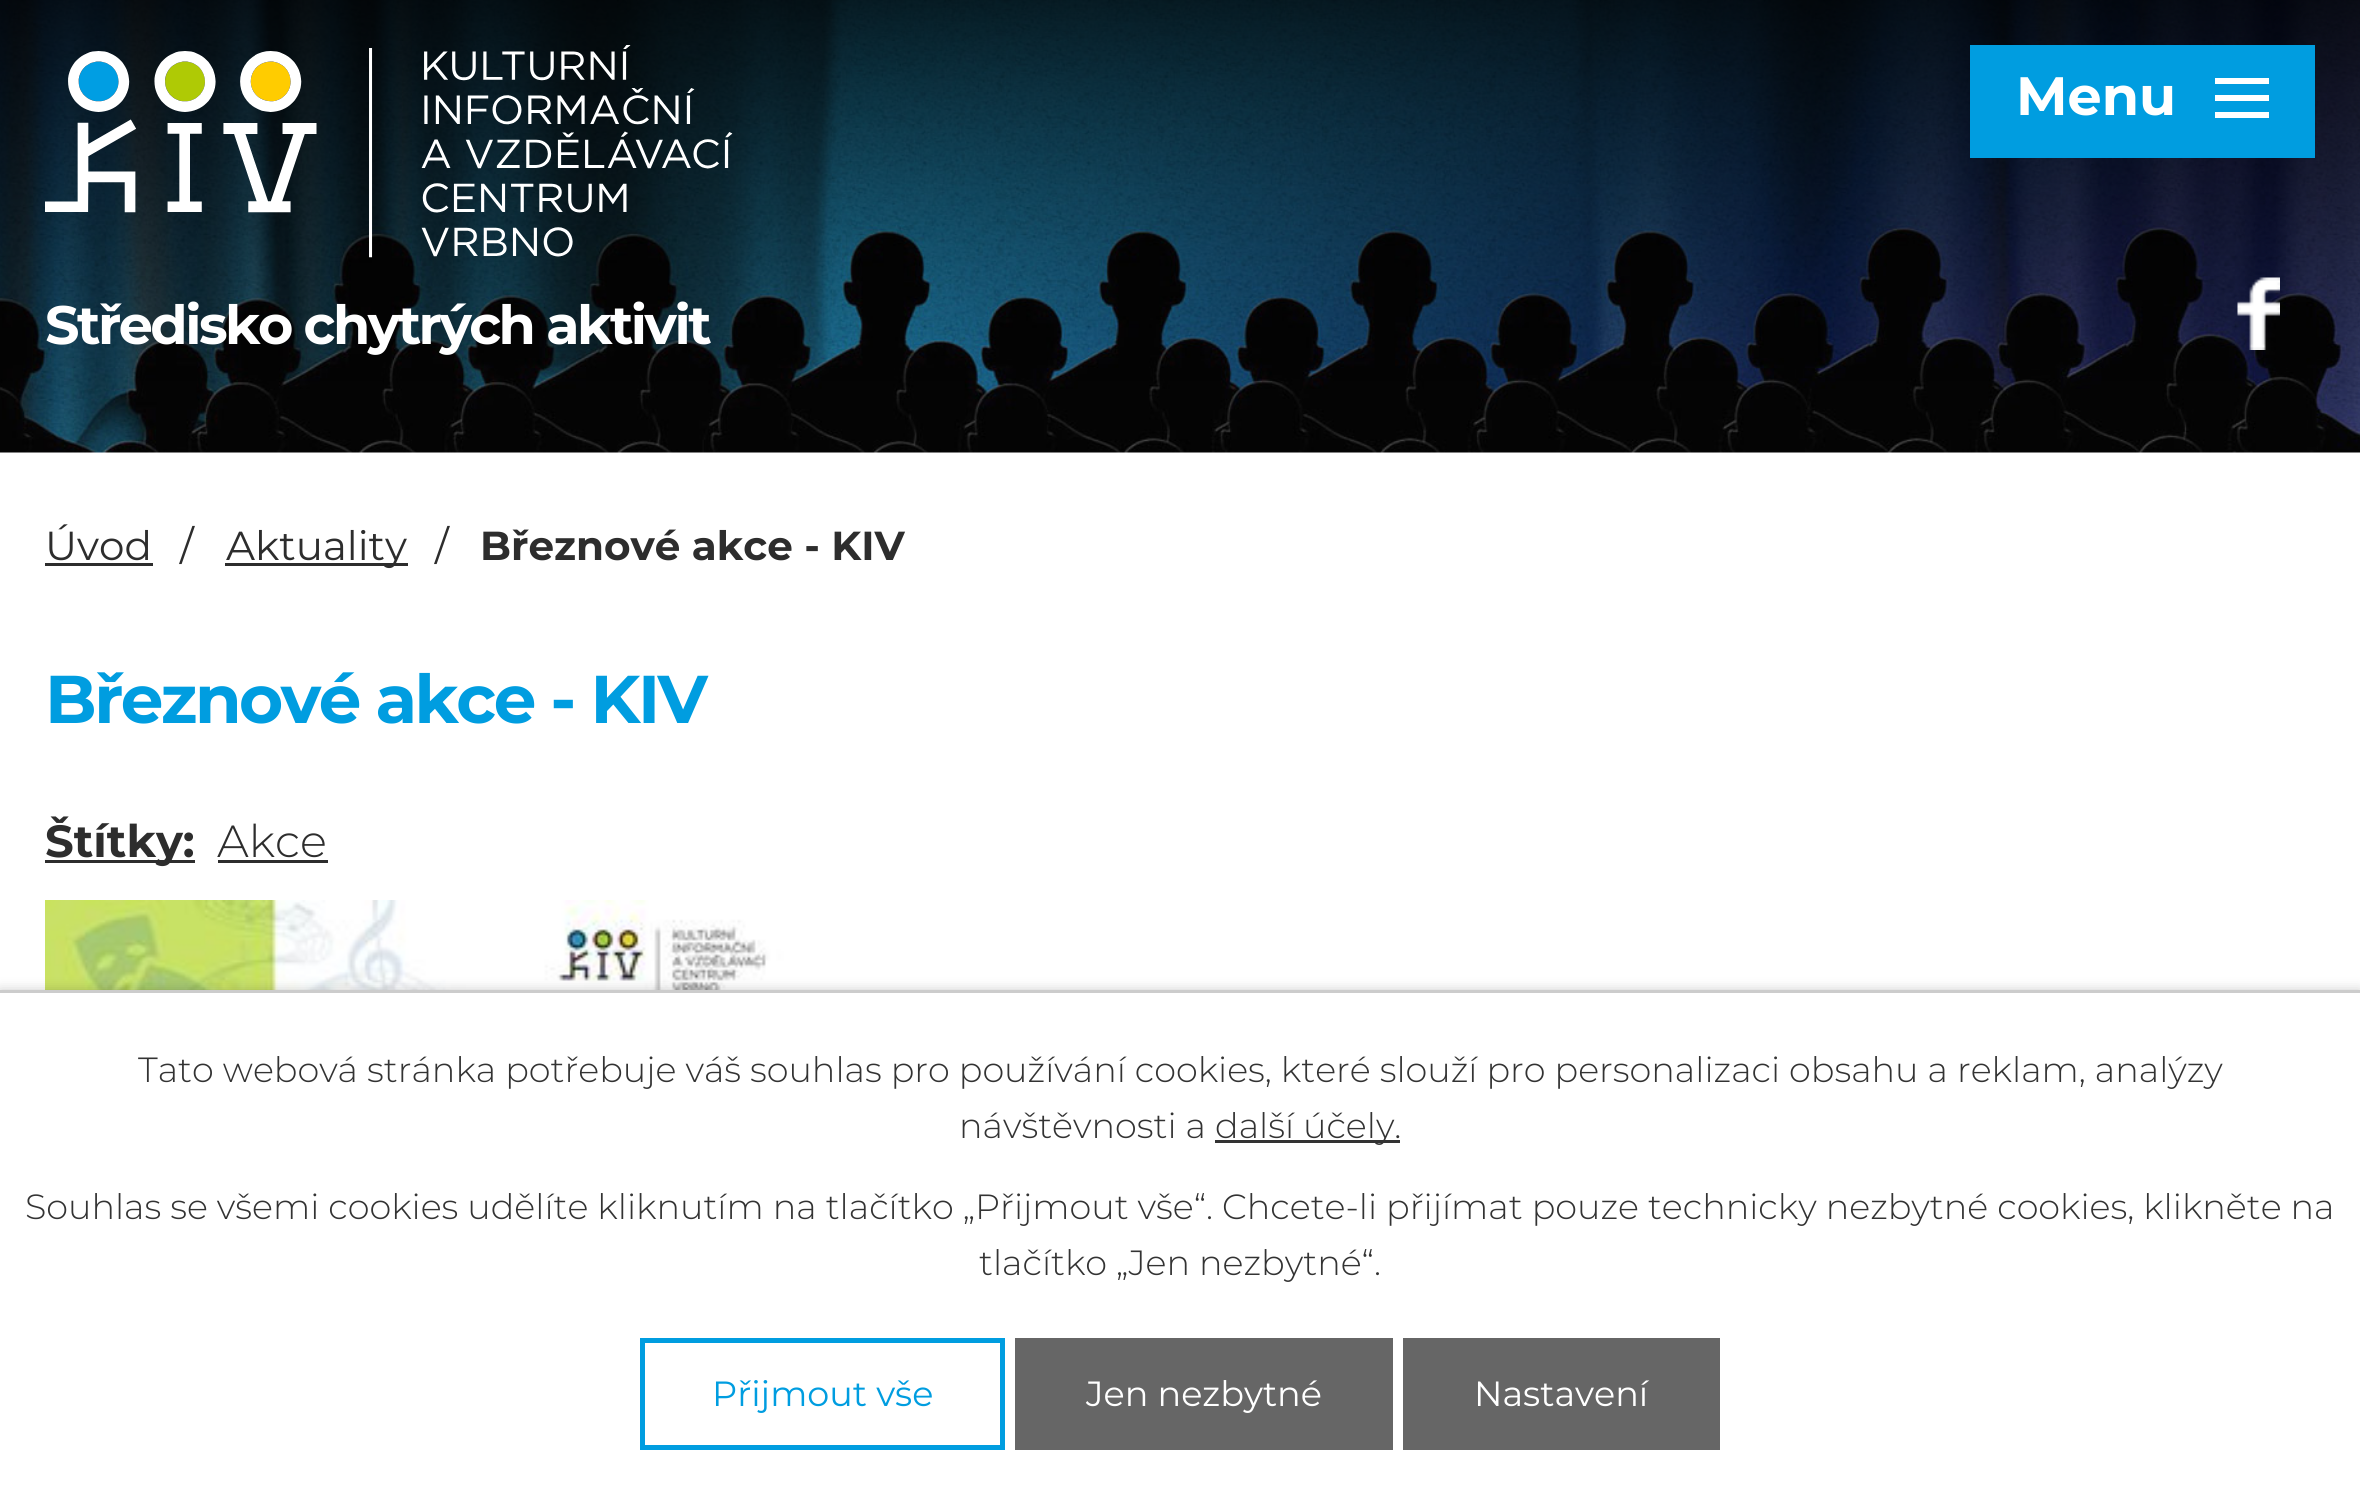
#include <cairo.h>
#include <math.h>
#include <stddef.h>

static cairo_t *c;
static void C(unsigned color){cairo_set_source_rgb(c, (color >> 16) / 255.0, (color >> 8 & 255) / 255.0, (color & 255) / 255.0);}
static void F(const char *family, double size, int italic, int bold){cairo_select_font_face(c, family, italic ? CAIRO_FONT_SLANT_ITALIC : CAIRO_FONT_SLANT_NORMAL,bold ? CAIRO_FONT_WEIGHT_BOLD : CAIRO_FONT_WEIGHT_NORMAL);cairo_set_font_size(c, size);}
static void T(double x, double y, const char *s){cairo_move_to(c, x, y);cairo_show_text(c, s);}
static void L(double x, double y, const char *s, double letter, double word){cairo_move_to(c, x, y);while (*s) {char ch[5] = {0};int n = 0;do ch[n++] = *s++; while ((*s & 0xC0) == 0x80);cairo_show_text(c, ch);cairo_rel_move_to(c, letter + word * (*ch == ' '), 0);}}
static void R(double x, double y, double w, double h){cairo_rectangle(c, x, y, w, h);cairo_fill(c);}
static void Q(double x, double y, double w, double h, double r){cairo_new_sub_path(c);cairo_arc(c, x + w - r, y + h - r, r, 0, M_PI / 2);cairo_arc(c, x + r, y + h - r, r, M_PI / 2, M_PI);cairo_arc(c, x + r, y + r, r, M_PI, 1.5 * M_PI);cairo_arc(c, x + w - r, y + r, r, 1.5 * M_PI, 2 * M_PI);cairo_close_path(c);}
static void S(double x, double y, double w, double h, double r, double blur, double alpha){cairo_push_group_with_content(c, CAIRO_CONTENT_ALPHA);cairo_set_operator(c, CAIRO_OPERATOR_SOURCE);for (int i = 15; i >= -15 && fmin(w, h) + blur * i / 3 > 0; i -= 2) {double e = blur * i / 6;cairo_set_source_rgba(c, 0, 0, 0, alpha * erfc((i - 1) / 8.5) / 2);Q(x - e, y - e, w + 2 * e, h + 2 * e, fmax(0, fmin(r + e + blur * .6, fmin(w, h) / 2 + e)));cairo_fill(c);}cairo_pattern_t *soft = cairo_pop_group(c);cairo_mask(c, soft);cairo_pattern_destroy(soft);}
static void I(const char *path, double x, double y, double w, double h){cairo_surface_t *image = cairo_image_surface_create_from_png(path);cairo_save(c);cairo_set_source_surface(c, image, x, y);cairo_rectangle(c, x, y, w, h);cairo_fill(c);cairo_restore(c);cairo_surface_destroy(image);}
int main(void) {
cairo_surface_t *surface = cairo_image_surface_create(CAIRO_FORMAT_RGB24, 2360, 1496);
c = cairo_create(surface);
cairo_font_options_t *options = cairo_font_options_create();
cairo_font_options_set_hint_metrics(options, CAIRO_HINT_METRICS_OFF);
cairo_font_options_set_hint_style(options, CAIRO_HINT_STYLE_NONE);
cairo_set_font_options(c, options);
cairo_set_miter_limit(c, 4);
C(0xffffff);
cairo_paint(c);
I("1.png",0,0,2360,453);
C(0x009de0);
R(1970,45,345,113);
F("Montserrat",54,0,1);
C(0xffffff);
T(2016,115,"Menu");
cairo_new_path(c);
cairo_move_to(c,2215,118);
cairo_line_to(c,2215,112);
cairo_line_to(c,2269,112);
cairo_line_to(c,2269,118);
cairo_close_path(c);
cairo_move_to(c,2215,78);
cairo_line_to(c,2269,78);
cairo_line_to(c,2269,84);
cairo_line_to(c,2215,84);
cairo_close_path(c);
cairo_move_to(c,2215,101);
cairo_line_to(c,2215,95);
cairo_line_to(c,2269,95);
cairo_line_to(c,2269,101);
cairo_close_path(c);
cairo_fill(c);
I("2.png",45,45,688,213);
L(45,344,"Středisko chytrých aktivit",-2.5,0);
I("3.png",2237,277,43,73);
F("Montserrat",40.5,0,0);
C(0x2d2d2d);
T(45,560,"Úvod");
R(45,563,108,3);
T(180,560,"/");
R(225,563,183,3);
T(226,560,"Aktuality");
T(435,560,"/");
F("Montserrat",40.5,0,1);
T(480,560,"Březnové akce - KIV");
F("Montserrat",67.5,0,1);
C(0x009de0);
L(45,723,"Březnové akce - KIV",-2.5,0);
C(0x2d2d2d);
R(45,860,150,3);
F("Montserrat",45,0,1);
T(45,857,"Štítky:");
F("Montserrat Light",45,0,0);
T(217,857,"Akce");
R(218,860,110,3);
I("4.png",45,900,770,90);
C(0x000000);
S(0,990,2360,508,0,6,.2);
C(0xffffff);
R(0,993,2360,503);
C(0xcccccc);
R(0,990,2360,3);
F("Montserrat Light",35,0,0);
C(0x333333);
T(138,1082,"Tato webová stránka potřebuje váš souhlas pro používání cookies, které slouží pro personalizaci obsahu a reklam, analýzy");
T(959,1138,"návštěvnosti a");
R(1215,1140,185,3);
T(1215,1138,"další účely.");
T(25,1219,"Souhlas se všemi cookies udělíte kliknutím na tlačítko „Přijmout vše“. Chcete-li přijímat pouze technicky nezbytné cookies, klikněte na");
T(979,1275,"tlačítko „Jen nezbytné“.");
cairo_rectangle(c,642.5,1340.5,360,107);
C(0x009de0);
cairo_set_line_width(c,5);
cairo_stroke(c);
F("Montserrat",35,0,0);
T(712,1406,"Přijmout vše");
C(0x666666);
R(1015,1338,378,112);
C(0xffffff);
T(1086,1406,"Jen nezbytné");
C(0x666666);
R(1403,1338,317,112);
C(0xffffff);
T(1474,1406,"Nastavení");
cairo_surface_write_to_png(surface, "o.png");
cairo_font_options_destroy(options);
cairo_destroy(c);
cairo_surface_destroy(surface);
return 0;
}
